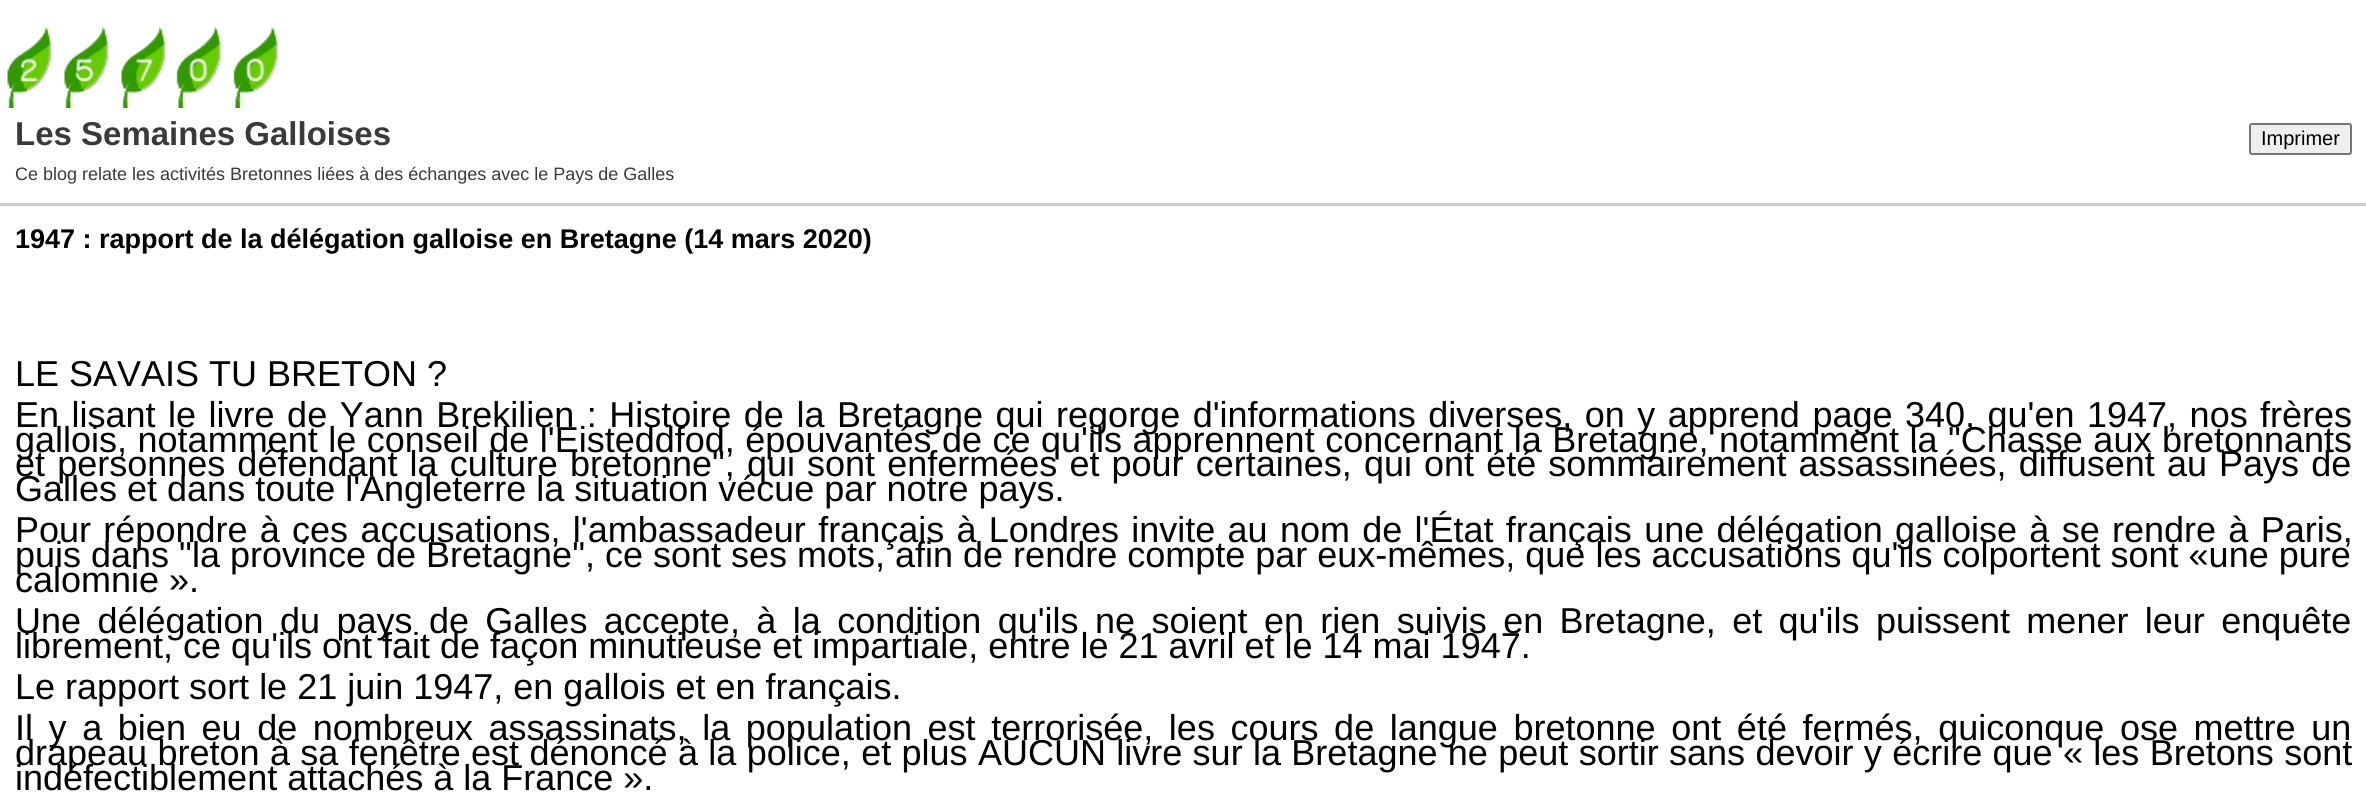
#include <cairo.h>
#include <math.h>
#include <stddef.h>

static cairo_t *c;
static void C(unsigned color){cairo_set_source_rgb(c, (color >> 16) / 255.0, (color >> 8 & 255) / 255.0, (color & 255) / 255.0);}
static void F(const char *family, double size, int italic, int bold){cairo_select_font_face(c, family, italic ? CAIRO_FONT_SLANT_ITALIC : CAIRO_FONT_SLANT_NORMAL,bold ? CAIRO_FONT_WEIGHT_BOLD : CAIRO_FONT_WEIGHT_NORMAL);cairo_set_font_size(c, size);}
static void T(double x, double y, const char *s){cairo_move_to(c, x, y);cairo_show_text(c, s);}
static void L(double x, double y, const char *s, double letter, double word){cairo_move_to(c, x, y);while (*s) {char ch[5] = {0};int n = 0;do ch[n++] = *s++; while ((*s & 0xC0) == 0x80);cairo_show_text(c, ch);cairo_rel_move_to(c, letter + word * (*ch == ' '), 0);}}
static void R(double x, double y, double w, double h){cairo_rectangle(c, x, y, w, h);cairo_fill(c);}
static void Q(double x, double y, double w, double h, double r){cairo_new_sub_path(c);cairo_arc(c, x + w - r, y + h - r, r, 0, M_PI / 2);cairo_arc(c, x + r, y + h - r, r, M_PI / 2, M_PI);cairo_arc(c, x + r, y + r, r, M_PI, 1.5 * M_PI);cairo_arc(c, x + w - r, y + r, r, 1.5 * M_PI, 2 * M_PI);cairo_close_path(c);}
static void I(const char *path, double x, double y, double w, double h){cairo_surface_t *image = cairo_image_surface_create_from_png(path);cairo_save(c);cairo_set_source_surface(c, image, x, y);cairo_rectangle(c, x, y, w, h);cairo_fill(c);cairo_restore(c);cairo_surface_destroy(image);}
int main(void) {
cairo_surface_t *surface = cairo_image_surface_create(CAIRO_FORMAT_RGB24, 2366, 792);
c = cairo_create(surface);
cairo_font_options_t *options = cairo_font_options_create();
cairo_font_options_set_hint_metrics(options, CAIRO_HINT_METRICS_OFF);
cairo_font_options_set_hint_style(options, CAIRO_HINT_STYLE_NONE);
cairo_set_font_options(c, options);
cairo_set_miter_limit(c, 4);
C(0xffffff);
cairo_paint(c);
I("1.png",7,26,271,82);
C(0xcccccc);
R(0,203,2366,3);
F("Liberation Sans",33,0,1);
C(0x3a3a3a);
T(15,145,"Les Semaines Galloises");
C(0xefefef);
Q(2250,124,101,30,2);
cairo_fill_preserve(c);
C(0x767676);
cairo_stroke(c);
F("Liberation Sans",20,0,0);
C(0x000000);
T(2261,145,"Imprimer");
F("Liberation Sans",18,0,0);
C(0x3a3a3a);
T(15,180,"Ce blog relate les activités Bretonnes liées à des échanges avec le Pays de Galles");
F("Liberation Sans",27,0,1);
C(0x000000);
T(15,248,"1947 : rapport de la délégation galloise en Bretagne (14 mars 2020)");
F("Liberation Sans",36,0,0);
T(15,386,"LE SAVAIS TU BRETON ?");
L(15,427,"En lisant le livre de Yann Brekilien : Histoire de la Bretagne qui regorge d'informations diverses, on y apprend page 340, qu'en 1947, nos",0,2.5);
T(2260,427,"frères");
L(15,452,"gallois, notamment le conseil de l'Eisteddfod, épouvantés de ce qu'ils apprennent concernant la Bretagne, notamment la \"Chasse aux bretonnants",0,.5);
L(15,476,"et personnes défendant la culture bretonne\", qui sont enfermées et pour certaines, qui ont été sommairement assassinées, diffusent au Pays de",0,2.1);
T(15,501,"Galles et dans toute l'Angleterre la situation vécue par notre pays.");
L(15,542,"Pour répondre à ces accusations, l'ambassadeur français à Londres invite au nom de l'État français une délégation galloise à se rendre à Paris,",0,2.3);
T(15,567,"puis dans \"la province de Bretagne\", ce sont ses mots, afin de rendre compte par eux-mêmes, que les accusations qu'ils colportent sont «une pure");
T(15,592,"calomnie ».");
L(15,633,"Une délégation du pays de Galles accepte, à la condition qu'ils ne soient en rien suivis en Bretagne, et qu'ils puissent mener leur enquête",0,6.4);
T(15,658,"librement, ce qu'ils ont fait de façon minutieuse et impartiale, entre le 21 avril et le 14 mai 1947.");
T(15,699,"Le rapport sort le 21 juin 1947, en gallois et en français.");
L(15,740,"Il y a bien eu de nombreux assassinats, la population est terrorisée, les cours de langue bretonne ont été fermés, quiconque ose mettre un",0,5.6);
L(15,765,"drapeau breton à sa fenêtre est dénoncé à la police, et plus AUCUN livre sur la Bretagne ne peut sortir sans devoir y écrire que « les Bretons sont",0,.35);
T(15,790,"indéfectiblement attachés à la France ».");
cairo_surface_write_to_png(surface, "o.png");
cairo_font_options_destroy(options);
cairo_destroy(c);
cairo_surface_destroy(surface);
return 0;
}
